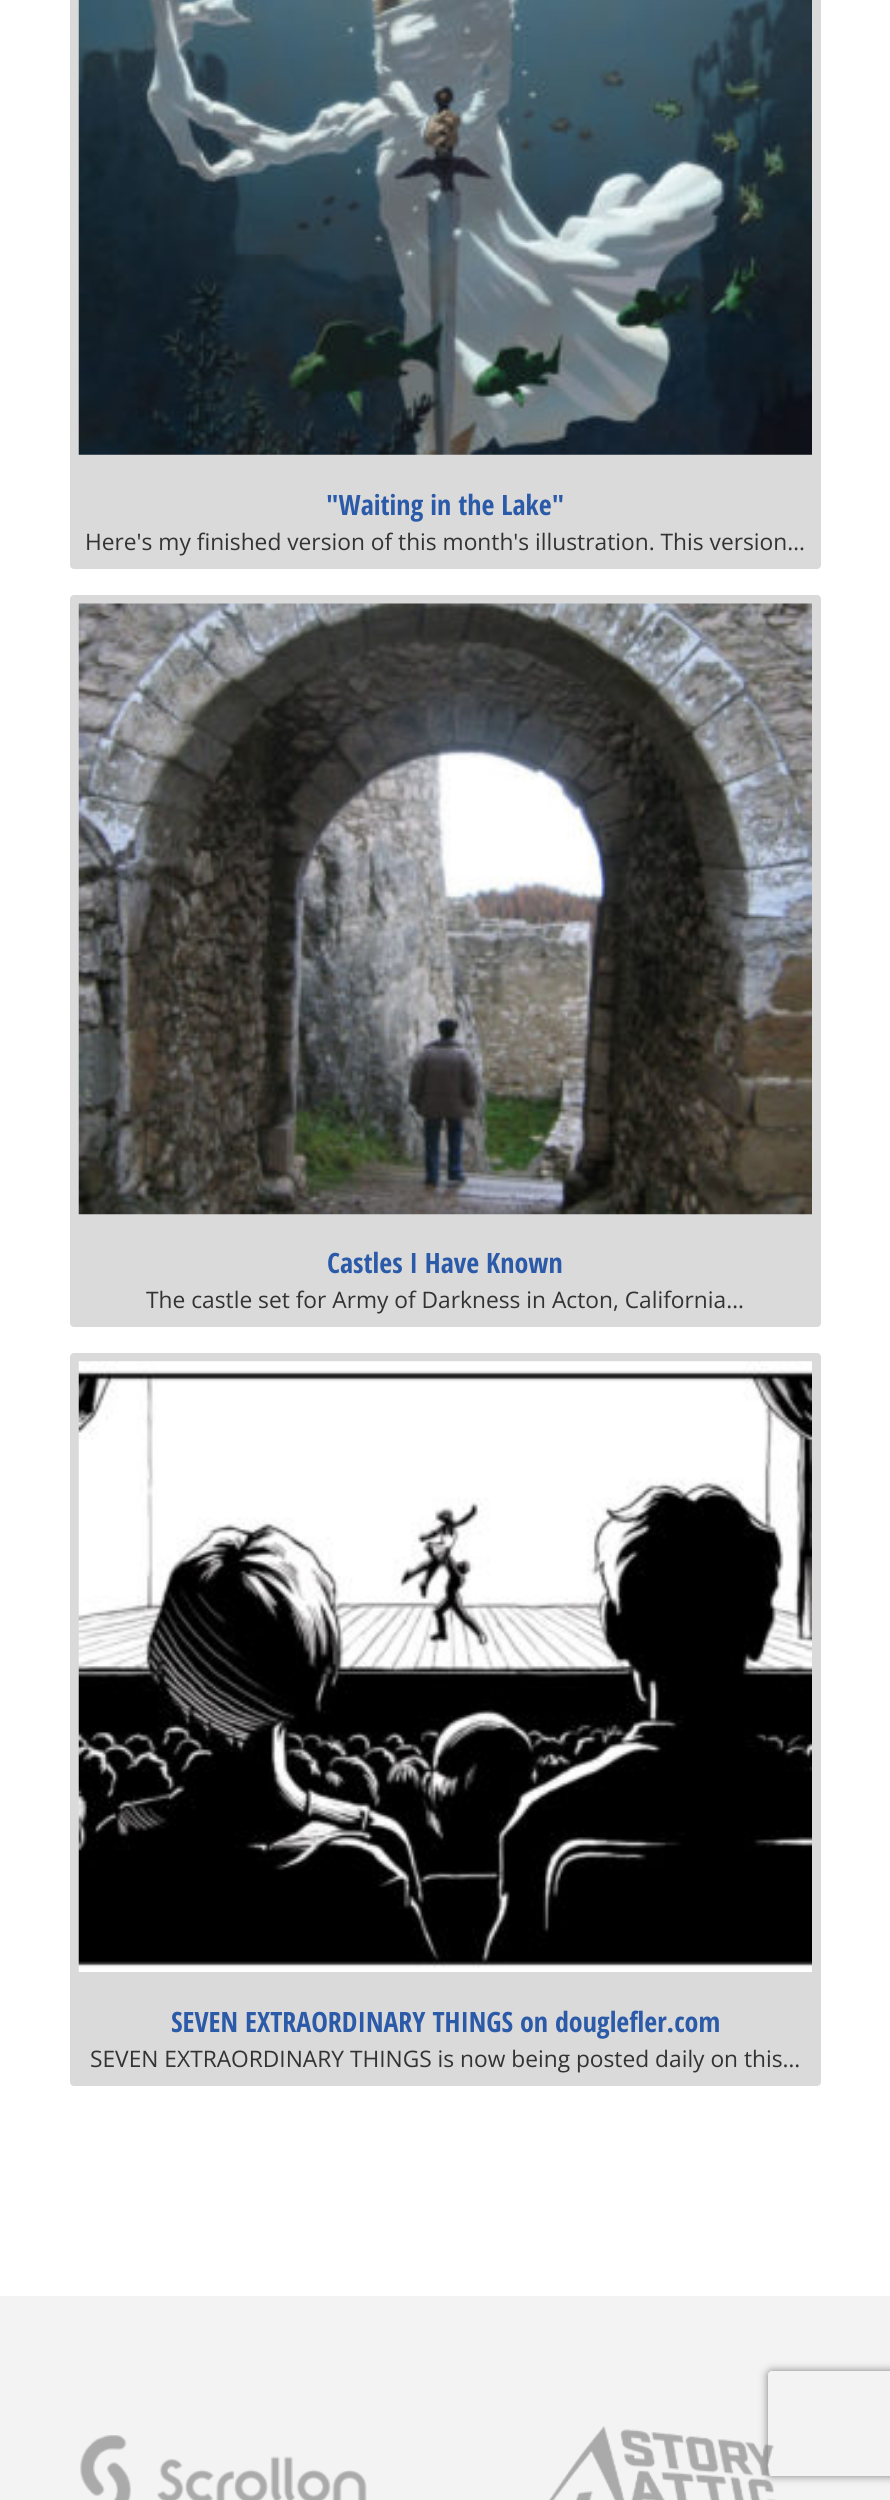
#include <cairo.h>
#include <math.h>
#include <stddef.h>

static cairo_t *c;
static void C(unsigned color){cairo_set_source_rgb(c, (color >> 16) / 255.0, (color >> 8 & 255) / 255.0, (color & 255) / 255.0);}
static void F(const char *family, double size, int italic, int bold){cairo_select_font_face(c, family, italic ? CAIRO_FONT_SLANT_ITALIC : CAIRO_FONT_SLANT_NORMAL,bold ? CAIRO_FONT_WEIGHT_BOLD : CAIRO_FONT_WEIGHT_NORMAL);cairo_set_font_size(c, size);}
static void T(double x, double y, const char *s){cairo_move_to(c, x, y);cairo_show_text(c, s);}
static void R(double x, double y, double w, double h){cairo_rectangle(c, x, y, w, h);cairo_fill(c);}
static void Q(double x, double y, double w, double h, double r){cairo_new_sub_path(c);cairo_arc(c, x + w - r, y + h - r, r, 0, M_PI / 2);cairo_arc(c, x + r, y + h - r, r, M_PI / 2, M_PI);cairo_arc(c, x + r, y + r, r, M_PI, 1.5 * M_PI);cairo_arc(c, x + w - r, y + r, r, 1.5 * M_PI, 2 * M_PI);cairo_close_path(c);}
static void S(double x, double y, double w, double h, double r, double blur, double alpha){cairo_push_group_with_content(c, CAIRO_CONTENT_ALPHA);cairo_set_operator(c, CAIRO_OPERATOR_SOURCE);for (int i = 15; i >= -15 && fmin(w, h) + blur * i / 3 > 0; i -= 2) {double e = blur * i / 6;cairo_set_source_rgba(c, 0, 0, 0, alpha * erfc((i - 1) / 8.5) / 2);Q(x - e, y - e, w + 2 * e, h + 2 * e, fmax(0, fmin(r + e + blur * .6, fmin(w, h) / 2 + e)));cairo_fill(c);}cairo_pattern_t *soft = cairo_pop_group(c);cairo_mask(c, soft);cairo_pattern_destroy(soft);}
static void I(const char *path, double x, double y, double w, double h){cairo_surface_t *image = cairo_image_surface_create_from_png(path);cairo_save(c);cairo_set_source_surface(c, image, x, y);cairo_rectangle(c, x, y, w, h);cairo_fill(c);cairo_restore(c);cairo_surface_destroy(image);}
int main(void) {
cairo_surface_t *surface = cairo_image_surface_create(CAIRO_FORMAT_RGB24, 890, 2500);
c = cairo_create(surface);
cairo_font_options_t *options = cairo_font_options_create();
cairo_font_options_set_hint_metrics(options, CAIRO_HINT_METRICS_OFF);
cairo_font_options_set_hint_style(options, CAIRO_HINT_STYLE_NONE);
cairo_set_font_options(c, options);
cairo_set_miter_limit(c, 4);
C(0xffffff);
cairo_paint(c);
C(0xdadada);
Q(70,-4,751,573,4);
cairo_fill(c);
I("1.png",78,0,734,455);
F("Open Sans Condensed",28,0,1);
C(0x2b5aa8);
T(326,515,"\"Waiting in the Lake\"");
F("Open Sans",22.75,0,0);
C(0x333333);
T(85,550,"Here's my finished version of this month's illustration. This version…");
C(0xdadada);
Q(70,595,751,732,4);
cairo_fill(c);
I("2.png",78,603,734,612);
F("Open Sans Condensed",28,0,1);
C(0x2b5aa8);
T(327,1273,"Castles I Have Known");
F("Open Sans",22.75,0,0);
C(0x333333);
T(146,1308,"The castle set for Army of Darkness in Acton, California…");
C(0xdadada);
Q(70,1353,751,733,4);
cairo_fill(c);
I("3.png",78,1361,734,611);
F("Open Sans Condensed",28,0,1);
C(0x2b5aa8);
T(171,2032,"SEVEN EXTRAORDINARY THINGS on douglefler.com");
F("Open Sans",22.75,0,0);
C(0x333333);
T(90,2067,"SEVEN EXTRAORDINARY THINGS is now being posted daily on this…");
C(0xf3f3f3);
R(0,2296,890,204);
I("4.png",80,2435,287,65);
I("5.png",549,2426,227,74);
cairo_save(c);
cairo_set_fill_rule(c,CAIRO_FILL_RULE_EVEN_ODD);
cairo_new_path(c);
cairo_move_to(c,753,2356);
cairo_line_to(c,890,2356);
cairo_line_to(c,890,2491);
cairo_line_to(c,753,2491);
cairo_close_path(c);
cairo_move_to(c,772,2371);
cairo_line_to(c,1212,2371);
cairo_curve_to(c,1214,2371,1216,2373,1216,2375);
cairo_line_to(c,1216,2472);
cairo_curve_to(c,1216,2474,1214,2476,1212,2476);
cairo_line_to(c,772,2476);
cairo_curve_to(c,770,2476,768,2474,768,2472);
cairo_line_to(c,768,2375);
cairo_curve_to(c,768,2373,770,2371,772,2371);
cairo_close_path(c);
cairo_clip(c);
C(0x808080);
S(768,2371,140,105,4,4.5,1);
cairo_restore(c);
cairo_surface_write_to_png(surface, "o.png");
cairo_font_options_destroy(options);
cairo_destroy(c);
cairo_surface_destroy(surface);
return 0;
}
